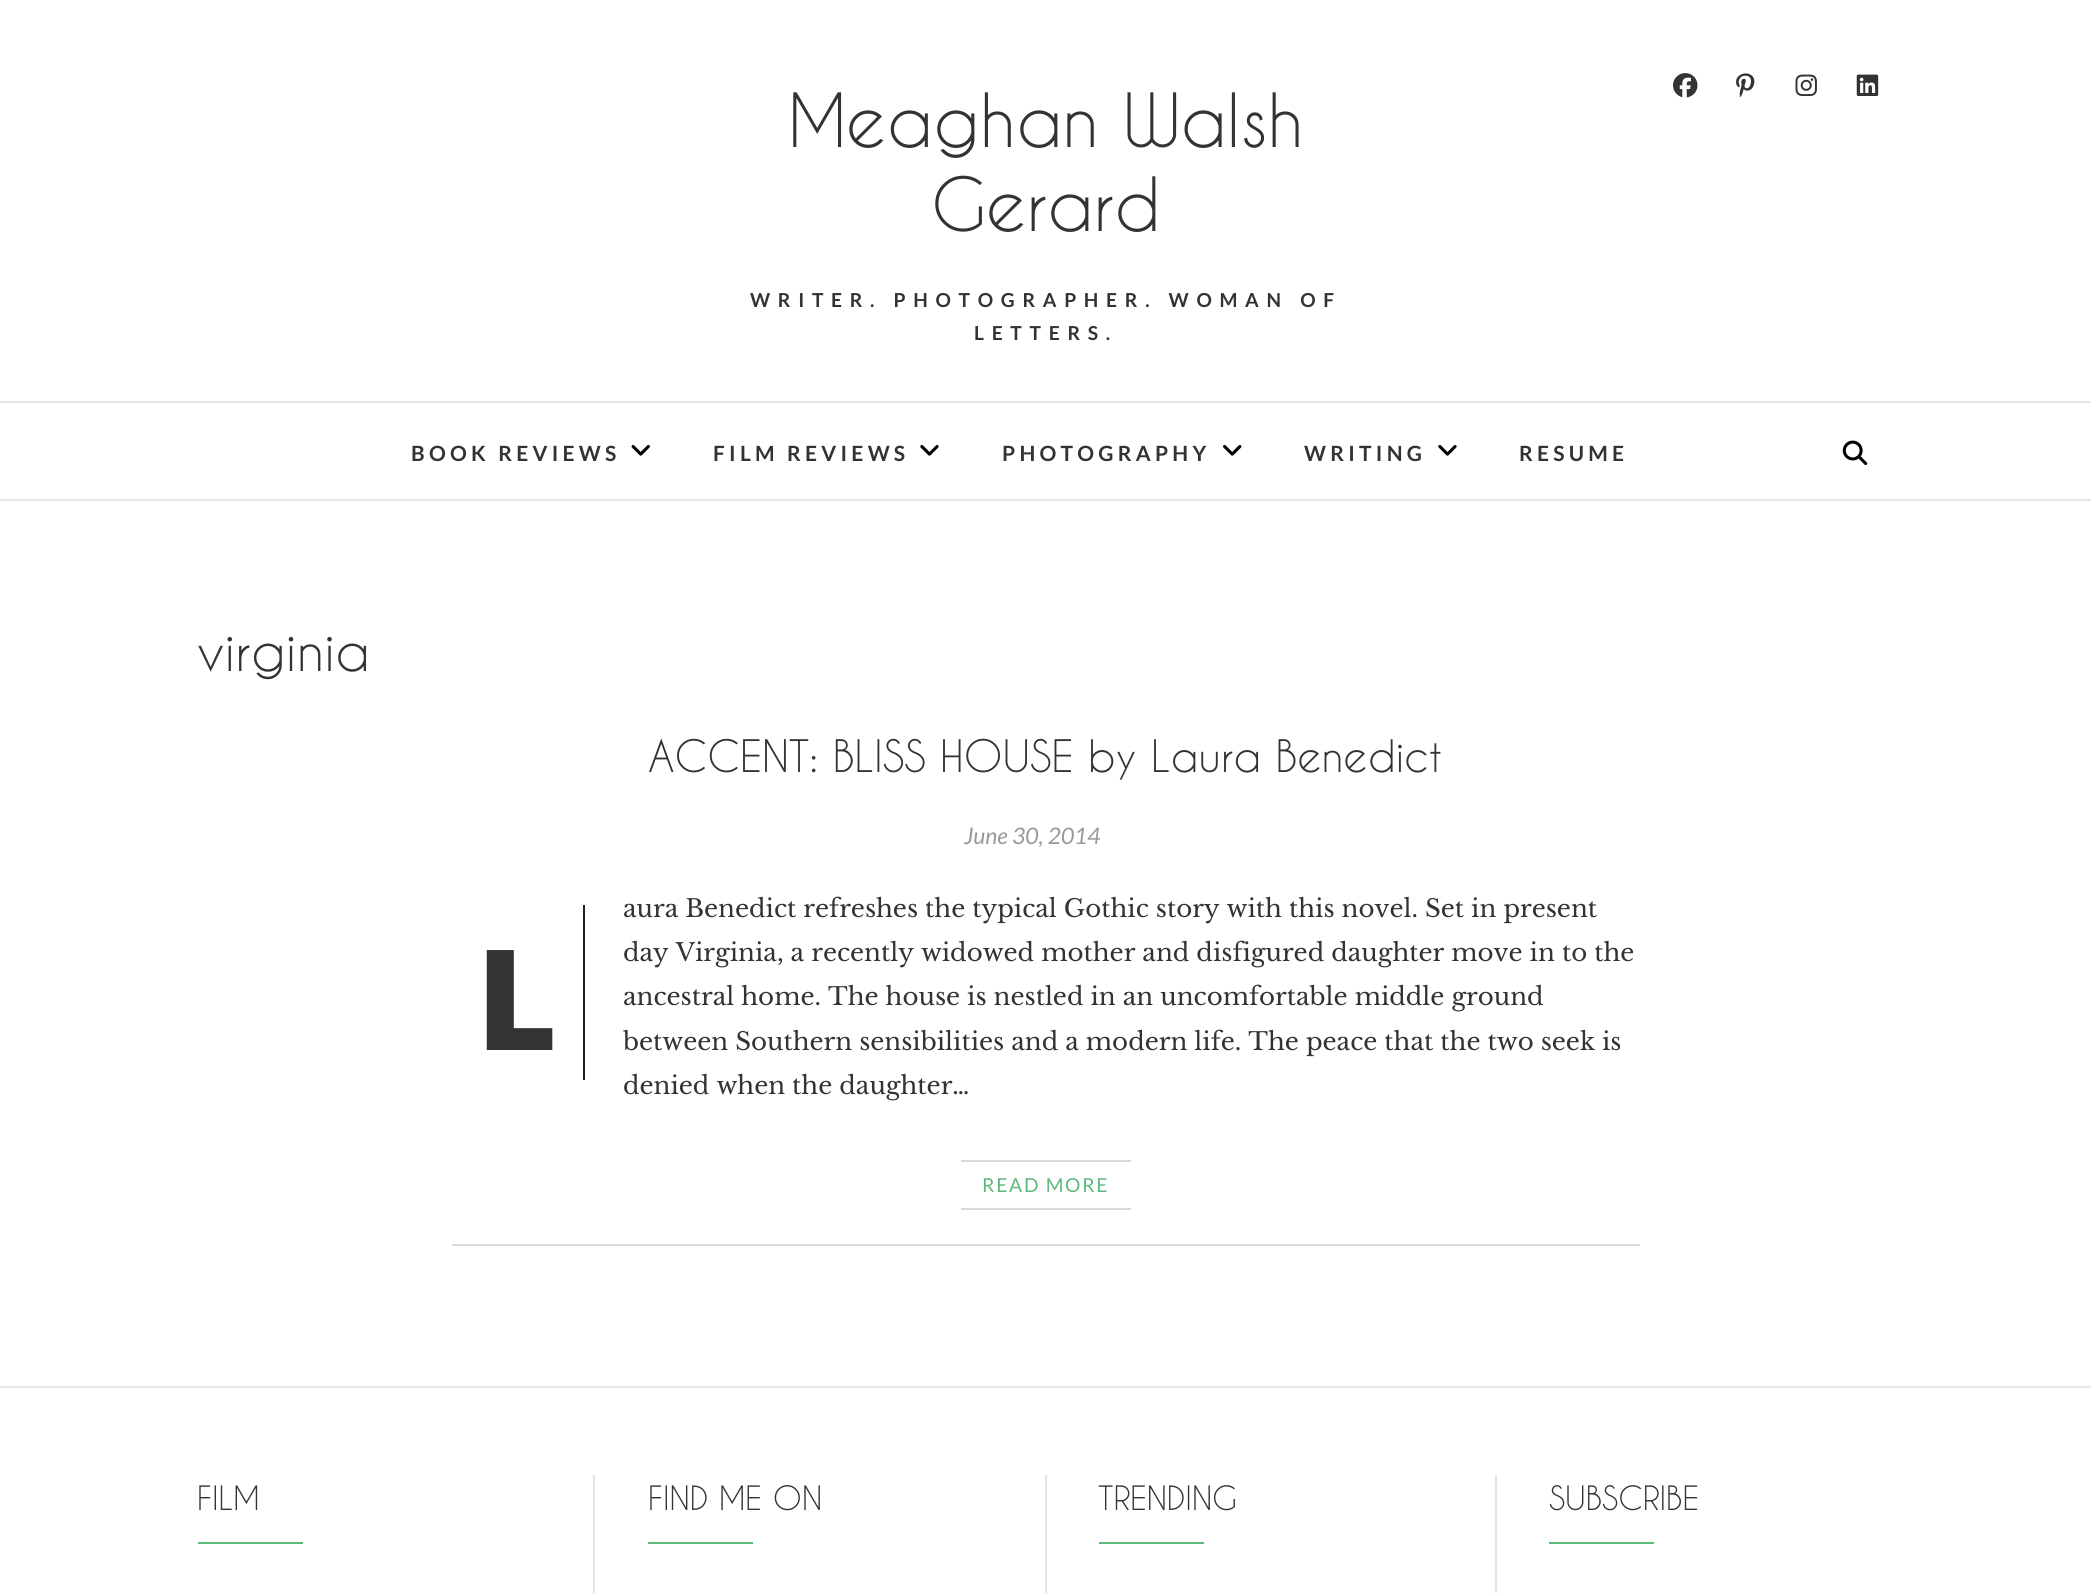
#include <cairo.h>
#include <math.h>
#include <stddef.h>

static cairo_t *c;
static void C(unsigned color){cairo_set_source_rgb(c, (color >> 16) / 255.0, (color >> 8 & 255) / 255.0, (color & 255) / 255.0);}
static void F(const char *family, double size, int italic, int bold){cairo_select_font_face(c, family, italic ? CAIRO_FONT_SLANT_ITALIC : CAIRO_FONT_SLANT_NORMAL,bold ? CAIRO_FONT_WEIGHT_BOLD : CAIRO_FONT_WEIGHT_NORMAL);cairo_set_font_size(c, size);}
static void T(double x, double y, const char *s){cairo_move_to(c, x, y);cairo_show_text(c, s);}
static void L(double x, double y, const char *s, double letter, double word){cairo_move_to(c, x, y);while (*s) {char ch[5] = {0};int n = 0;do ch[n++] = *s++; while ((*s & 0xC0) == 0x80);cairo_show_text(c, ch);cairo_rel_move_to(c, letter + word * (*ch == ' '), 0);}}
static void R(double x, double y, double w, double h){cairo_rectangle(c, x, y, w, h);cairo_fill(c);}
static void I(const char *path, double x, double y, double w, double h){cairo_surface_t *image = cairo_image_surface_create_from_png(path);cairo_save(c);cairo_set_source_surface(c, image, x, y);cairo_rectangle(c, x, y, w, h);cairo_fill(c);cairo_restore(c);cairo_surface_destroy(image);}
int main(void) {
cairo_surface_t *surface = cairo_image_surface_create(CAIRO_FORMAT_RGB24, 2091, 1593);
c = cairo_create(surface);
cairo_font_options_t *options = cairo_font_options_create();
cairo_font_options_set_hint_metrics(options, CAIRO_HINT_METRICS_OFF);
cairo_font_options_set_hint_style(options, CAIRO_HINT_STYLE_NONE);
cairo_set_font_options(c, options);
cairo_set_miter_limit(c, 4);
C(0xffffff);
cairo_paint(c);
C(0xe6e6e6);
R(0,401,2091,2);
I("1.png",1673,73,25,25);
I("2.png",1736,73,19,25);
I("3.png",1795,74,22,22);
I("4.png",1856,74,23,22);
F("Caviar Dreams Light",70,0,0);
C(0x333333);
T(788,147,"Meaghan Walsh");
T(931,231,"Gerard");
F("Lato",19.25,0,1);
L(750,307,"WRITER. PHOTOGRAPHER. WOMAN OF",7.7,0);
L(974,340,"LETTERS.",7.7,0);
C(0xe6e6e6);
R(0,499,2091,2);
F("Lato",21,0,1);
C(0x333333);
L(411,461,"BOOK REVIEWS",4.25,0);
I("5.png",631,445,19,11);
L(713,461,"FILM REVIEWS",4.25,0);
I("6.png",920,445,19,11);
L(1002,461,"PHOTOGRAPHY",4.25,0);
I("7.png",1223,445,19,11);
L(1304,461,"WRITING",4.25,0);
I("6.png",1438,445,19,11);
L(1519,461,"RESUME",4.25,0);
I("8.png",1842,440,26,25);
F("Caviar Dreams Light",52.5,0,0);
T(197,671,"virginia");
F("Caviar Dreams Light",42,0,0);
T(648,772,"ACCENT: BLISS HOUSE by Laura Benedict");
F("Lato",22.75,1,0);
C(0x999999);
T(964,844,"June 30, 2014");
F("Libre Baskerville",24.5,0,0);
C(0x333333);
T(623,917,"aura Benedict refreshes the typical Gothic story with this novel. Set in present");
C(0x222222);
R(583,905,2,175);
F("Noto Sans Black",140,0,0);
C(0x333333);
T(476,1050,"L");
F("Libre Baskerville",24.5,0,0);
T(623,961,"day Virginia, a recently widowed mother and disfigured daughter move in to the");
T(623,1005,"ancestral home. The house is nestled in an uncomfortable middle ground");
T(623,1050,"between Southern sensibilities and a modern life. The peace that the two seek is");
T(623,1094,"denied when the daughter…");
C(0xd9d9d9);
R(452,1244,1188,2);
R(961,1160,170,2);
R(961,1208,170,2);
F("Lato",19.25,0,0);
C(0x5fb97d);
L(982,1192,"READ MORE",1.75,0);
C(0xe6e6e6);
R(0,1386,2091,2);
C(0xe4e4e4);
R(593,1475,2,118);
F("Caviar Dreams Light",31.5,0,0);
C(0x333333);
T(197,1510,"FILM");
C(0x5fb97d);
R(198,1542,105,2);
C(0xe4e4e4);
R(1045,1475,2,118);
C(0x333333);
T(648,1510,"FIND ME ON");
C(0x5fb97d);
R(648,1542,105,2);
C(0xe4e4e4);
R(1495,1475,2,118);
C(0x333333);
T(1098,1510,"TRENDING");
C(0x5fb97d);
R(1099,1542,105,2);
C(0x333333);
T(1549,1510,"SUBSCRIBE");
C(0x5fb97d);
R(1549,1542,105,2);
cairo_surface_write_to_png(surface, "o.png");
cairo_font_options_destroy(options);
cairo_destroy(c);
cairo_surface_destroy(surface);
return 0;
}
